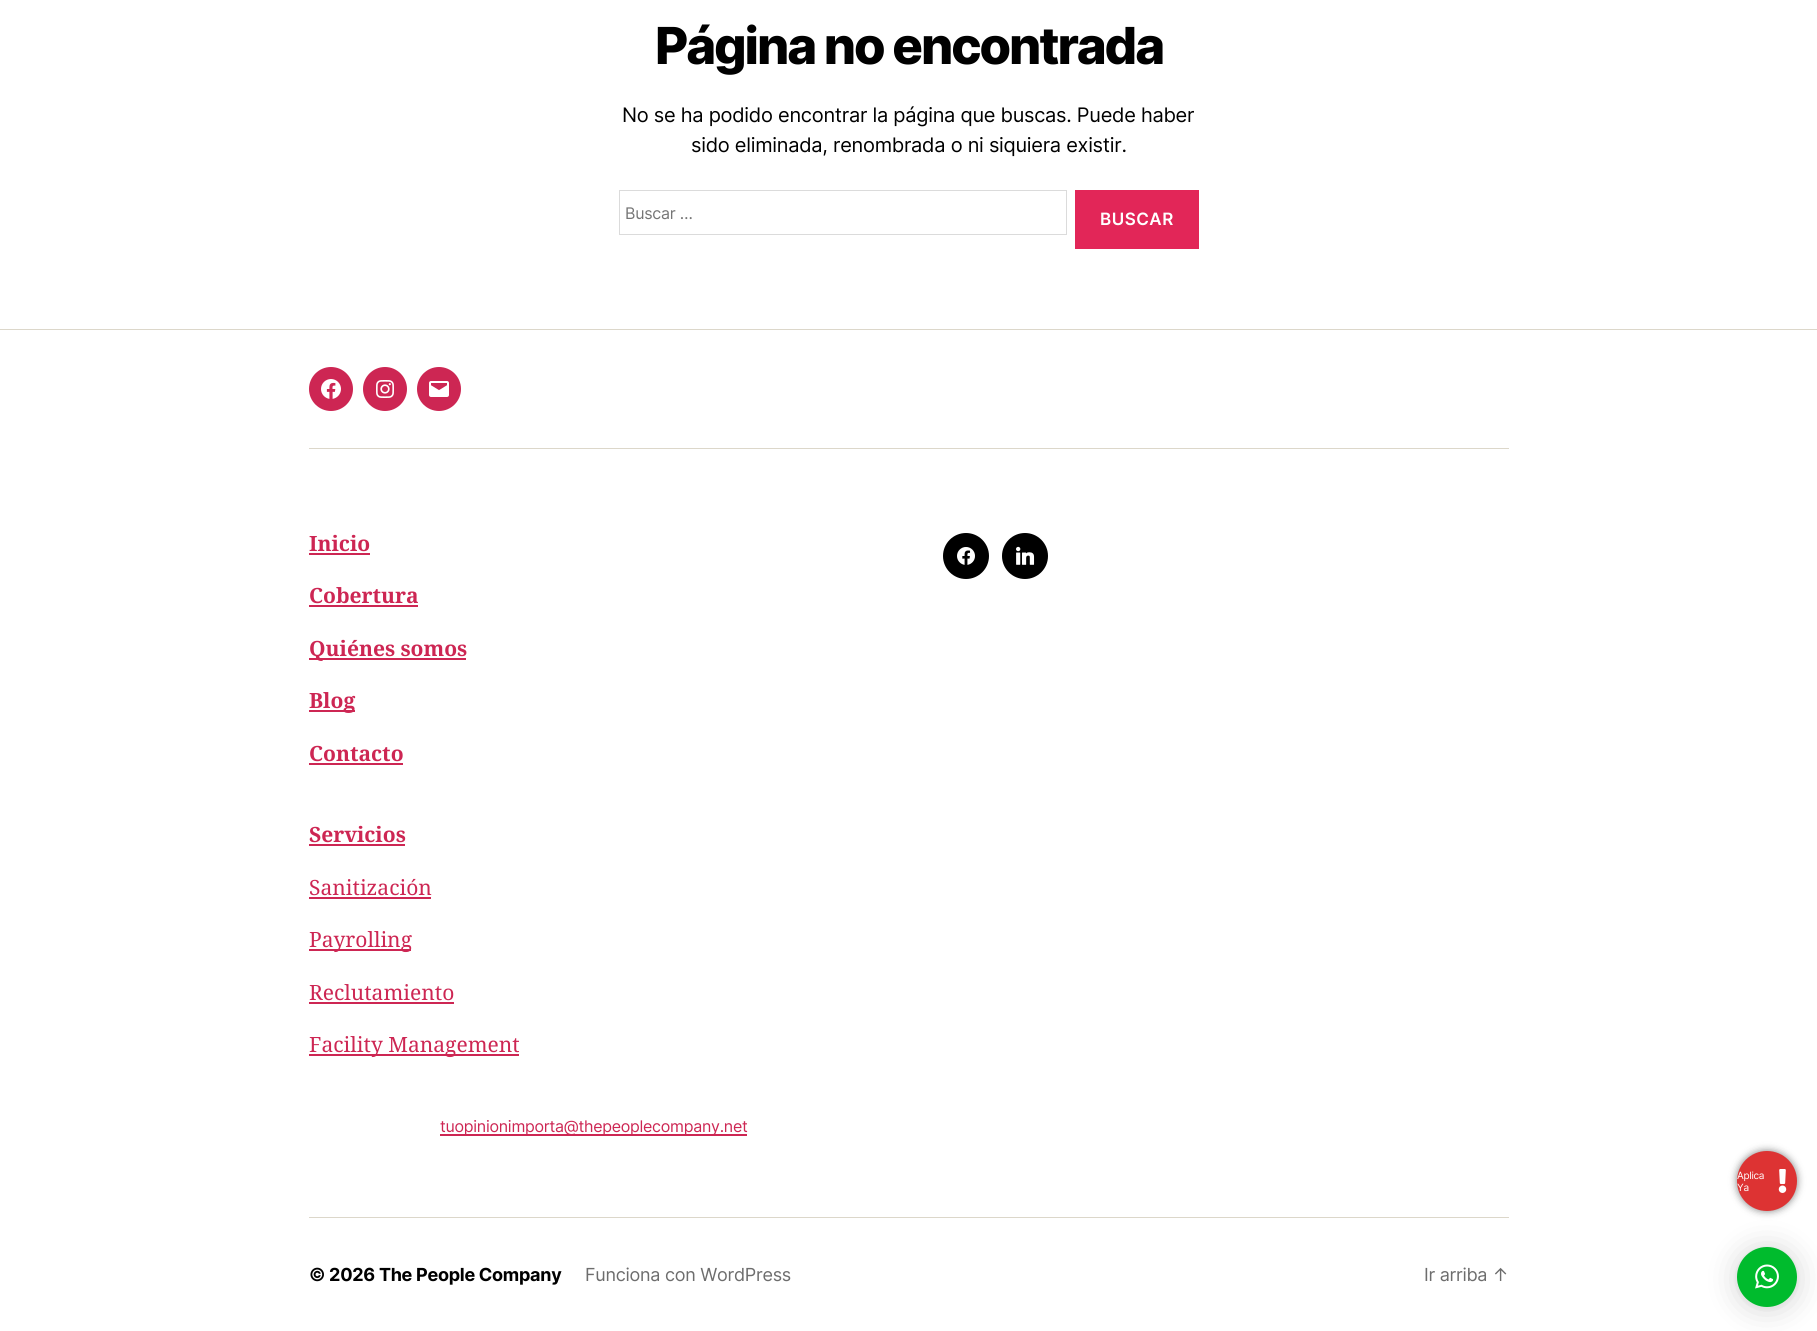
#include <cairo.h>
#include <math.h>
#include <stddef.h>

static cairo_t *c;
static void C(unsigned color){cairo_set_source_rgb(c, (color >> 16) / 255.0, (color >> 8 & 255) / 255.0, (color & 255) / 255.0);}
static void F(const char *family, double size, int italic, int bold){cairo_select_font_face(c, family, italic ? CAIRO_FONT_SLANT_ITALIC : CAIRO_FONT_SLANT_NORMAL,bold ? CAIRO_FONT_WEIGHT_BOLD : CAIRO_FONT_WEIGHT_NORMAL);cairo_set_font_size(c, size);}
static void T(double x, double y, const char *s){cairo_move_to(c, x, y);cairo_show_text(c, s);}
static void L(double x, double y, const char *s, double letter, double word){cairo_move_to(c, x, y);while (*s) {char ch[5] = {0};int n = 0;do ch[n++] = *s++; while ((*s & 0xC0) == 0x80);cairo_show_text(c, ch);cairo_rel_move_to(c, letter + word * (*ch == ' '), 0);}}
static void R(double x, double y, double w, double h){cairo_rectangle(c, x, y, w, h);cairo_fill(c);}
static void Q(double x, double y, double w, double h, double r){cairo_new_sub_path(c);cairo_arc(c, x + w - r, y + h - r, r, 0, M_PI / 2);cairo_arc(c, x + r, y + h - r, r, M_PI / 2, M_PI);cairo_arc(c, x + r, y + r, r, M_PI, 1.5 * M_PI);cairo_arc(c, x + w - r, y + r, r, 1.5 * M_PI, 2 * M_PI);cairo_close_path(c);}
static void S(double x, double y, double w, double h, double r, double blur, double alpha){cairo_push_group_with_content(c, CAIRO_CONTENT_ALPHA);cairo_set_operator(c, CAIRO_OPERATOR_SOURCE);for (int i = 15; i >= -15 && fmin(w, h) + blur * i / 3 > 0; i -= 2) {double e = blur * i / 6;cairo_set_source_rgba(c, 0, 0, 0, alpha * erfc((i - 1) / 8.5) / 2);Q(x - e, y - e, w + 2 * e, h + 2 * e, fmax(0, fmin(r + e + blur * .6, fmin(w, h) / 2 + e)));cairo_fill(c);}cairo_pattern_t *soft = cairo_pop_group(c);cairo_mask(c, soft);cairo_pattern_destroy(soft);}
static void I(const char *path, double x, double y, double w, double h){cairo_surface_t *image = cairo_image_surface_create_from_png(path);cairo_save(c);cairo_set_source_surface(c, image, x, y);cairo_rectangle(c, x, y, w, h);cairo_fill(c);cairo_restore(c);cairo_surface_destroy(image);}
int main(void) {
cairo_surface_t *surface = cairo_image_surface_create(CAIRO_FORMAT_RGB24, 1817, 1331);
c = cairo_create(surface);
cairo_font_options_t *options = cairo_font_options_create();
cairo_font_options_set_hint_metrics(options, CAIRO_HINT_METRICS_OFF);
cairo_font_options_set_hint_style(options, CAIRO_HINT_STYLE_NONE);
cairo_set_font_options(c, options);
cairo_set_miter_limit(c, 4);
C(0xffffff);
cairo_paint(c);
F("Inter ExtraBold",51,0,0);
C(0x000000);
L(655,64,"Página no encontrada",-2.1,0);
F("Inter",20,0,0);
L(622,122,"No se ha podido encontrar la página que buscas. Puede haber",-.27,0);
L(691,152,"sido eliminada, renombrada o ni siquiera existir.",-.27,0);
cairo_rectangle(c,619.5,190.5,447,44);
C(0xdbdbdb);
cairo_set_line_width(c,1);
cairo_stroke(c);
F("Inter",16,0,0);
C(0x757575);
L(625,219,"Buscar …",-.25,0);
C(0xe22658);
R(1075,190,124,59);
F("Inter SemiBold",17,0,0);
C(0xffffff);
L(1100,225,"BUSCAR",.5,0);
C(0xdcd7ca);
R(0,329,1817,1);
R(309,448,1200,1);
C(0xcd2653);
cairo_new_path(c);
cairo_arc(c,331,389,22,0,2 * M_PI);
cairo_fill(c);
I("1.png",321,379,20,20);
cairo_arc(c,385,389,22,0,2 * M_PI);
cairo_fill(c);
I("2.png",376,380,18,18);
cairo_arc(c,439,389,22,0,2 * M_PI);
cairo_fill(c);
I("3.png",429,381,20,16);
C(0xdcd7ca);
R(309,1217,1200,1);
F("Noto Serif",21,0,1);
C(0xcd2653);
T(309,551,"Inicio");
R(309,553,61,2);
T(309,603,"Cobertura");
R(309,605,109,2);
R(309,658,157,2);
T(309,656,"Quiénes somos");
R(309,710,46,2);
T(309,708,"Blog");
T(309,761,"Contacto");
R(309,763,94,2);
T(309,842,"Servicios");
R(309,844,96,2);
F("Noto Serif",21,0,0);
T(309,895,"Sanitización");
R(309,897,122,2);
R(309,949,102,2);
T(309,947,"Payrolling");
T(309,1000,"Reclutamiento");
R(309,1002,145,2);
R(309,1054,210,2);
T(309,1052,"Facility Management");
R(440,1134,307,2);
F("Inter",16,0,0);
L(440,1132,"tuopinionimporta@thepeoplecompany.net",-.27,0);
C(0x000000);
cairo_new_path(c);
cairo_arc(c,966,556,23,0,2 * M_PI);
cairo_fill(c);
I("4.png",957,547,18,18);
cairo_arc(c,1025,556,23,0,2 * M_PI);
cairo_fill(c);
I("5.png",1016,546,19,19);
C(0x000000);
S(1737,1151,60,60,30,4,.5);
C(0xdd3333);
cairo_arc(c,1767,1181,30,0,2 * M_PI);
cairo_fill(c);
F("Inter",10,0,0);
C(0xffffff);
L(1737,1179,"Aplica",-.27,0);
L(1737,1191,"Ya",-.27,0);
I("6.png",1778,1169,9,24);
F("Inter",18,0,1);
C(0x000000);
L(309,1281,"© 2026 The People Company",-.27,0);
F("Inter",18,0,0);
C(0x6d6d6d);
L(585,1281,"Funciona con WordPress",-.27,0);
L(1424,1281,"Ir arriba ↑",-.27,0);
C(0x000000);
S(1737,1249,60,60,30,16,.16);
S(1737,1248,60,60,30,3,.06);
C(0x00bb2d);
cairo_arc(c,1767,1277,30,0,2 * M_PI);
cairo_fill(c);
I("7.png",1755,1264,24,25);
cairo_surface_write_to_png(surface, "o.png");
cairo_font_options_destroy(options);
cairo_destroy(c);
cairo_surface_destroy(surface);
return 0;
}
